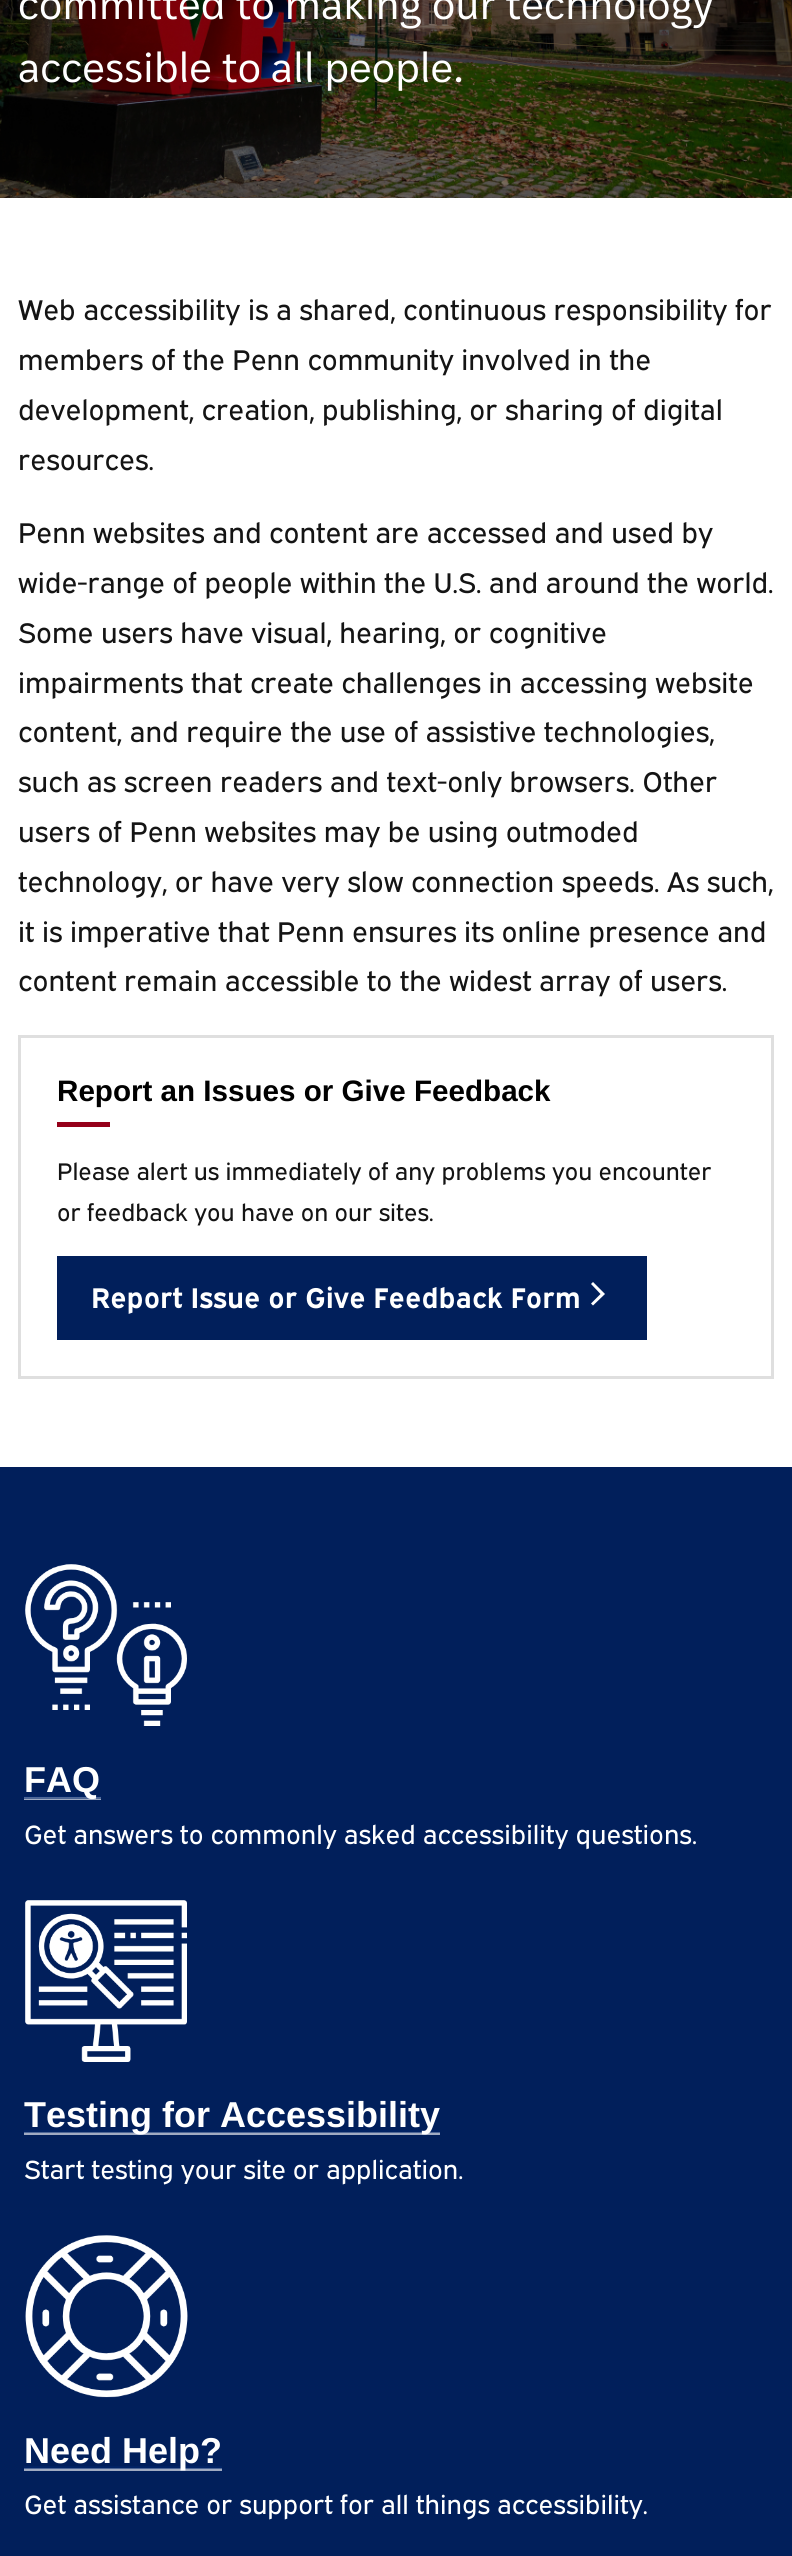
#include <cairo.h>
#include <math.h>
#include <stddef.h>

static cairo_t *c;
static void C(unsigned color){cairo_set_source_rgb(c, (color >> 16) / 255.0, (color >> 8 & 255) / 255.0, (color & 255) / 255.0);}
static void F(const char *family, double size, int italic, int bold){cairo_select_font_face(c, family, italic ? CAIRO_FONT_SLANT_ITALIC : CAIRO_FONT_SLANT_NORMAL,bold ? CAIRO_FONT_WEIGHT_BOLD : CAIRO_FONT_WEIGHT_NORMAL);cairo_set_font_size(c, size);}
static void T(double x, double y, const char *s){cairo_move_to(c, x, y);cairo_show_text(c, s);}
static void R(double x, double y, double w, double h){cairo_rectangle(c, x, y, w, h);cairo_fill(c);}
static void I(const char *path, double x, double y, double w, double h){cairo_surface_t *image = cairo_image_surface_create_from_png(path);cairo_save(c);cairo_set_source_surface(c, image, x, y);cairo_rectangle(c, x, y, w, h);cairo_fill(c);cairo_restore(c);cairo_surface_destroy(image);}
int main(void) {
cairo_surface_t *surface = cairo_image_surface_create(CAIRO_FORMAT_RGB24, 792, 2556);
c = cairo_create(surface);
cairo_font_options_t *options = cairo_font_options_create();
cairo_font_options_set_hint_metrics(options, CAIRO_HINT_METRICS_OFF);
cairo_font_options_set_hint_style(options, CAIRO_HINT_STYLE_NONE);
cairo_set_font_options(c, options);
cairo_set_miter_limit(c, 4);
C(0xffffff);
cairo_paint(c);
I("1.png",0,0,792,198);
F("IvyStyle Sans",42,0,0);
C(0xffffff);
T(18,19,"committed to making our technology");
T(18,82,"accessible to all people.");
F("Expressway",28.45,0,0);
C(0x141414);
T(18,320,"Web accessibility is a shared, continuous responsibility for");
T(18,370,"members of the Penn community involved in the");
T(18,420,"development, creation, publishing, or sharing of digital");
T(18,470,"resources.");
T(18,543,"Penn websites and content are accessed and used by");
T(18,593,"wide-range of people within the U.S. and around the world.");
T(18,643,"Some users have visual, hearing, or cognitive");
T(18,693,"impairments that create challenges in accessing website");
T(18,742,"content, and require the use of assistive technologies,");
T(18,792,"such as screen readers and text-only browsers. Other");
T(18,842,"users of Penn websites may be using outmoded");
T(18,892,"technology, or have very slow connection speeds. As such,");
T(18,942,"it is imperative that Penn ensures its online presence and");
T(18,991,"content remain accessible to the widest array of users.");
cairo_rectangle(c,19.5,1036.5,753,341);
C(0xdfdfdf);
cairo_set_line_width(c,3);
cairo_stroke(c);
F("Liberation Sans",29.6,0,1);
C(0x000000);
T(57,1101,"Report an Issues or Give Feedback");
C(0x95001a);
R(57,1122,53,5);
F("Expressway",24,0,0);
C(0x141414);
T(57,1180,"Please alert us immediately of any problems you encounter");
T(57,1221,"or feedback you have on our sites.");
C(0x011f5b);
R(57,1256,590,84);
F("Expressway",28.45,0,1);
C(0xffffff);
T(91,1308,"Report Issue or Give Feedback Form");
cairo_new_path(c);
cairo_move_to(c,591,1303.5);
cairo_line_to(c,593,1305.5);
cairo_line_to(c,605,1294);
cairo_line_to(c,593,1282);
cairo_line_to(c,591,1284);
cairo_line_to(c,600.5,1294);
cairo_close_path(c);
cairo_fill(c);
C(0x011f5b);
R(0,1467,792,1089);
C(0x012365);
R(24,2466,198,2);
R(24,2130,416,2);
R(24,1796,77,1);
I("2.png",25,1564,162,162);
C(0xa0abc2);
R(24,1799,77,1);
C(0x4d6696);
R(24,1797,77,2);
F("Liberation Sans",36,0,1);
C(0xffffff);
T(24,1792,"FAQ");
F("Expressway",26.4,0,0);
T(24,1844,"Get answers to commonly asked accessibility questions.");
I("3.png",25,1900,162,162);
C(0xa0abc2);
R(24,2133,416,2);
C(0x4d6696);
R(24,2132,416,1);
F("Liberation Sans",36,0,1);
C(0xffffff);
T(24,2127,"Testing for Accessibility");
F("Expressway",26.4,0,0);
T(24,2179,"Start testing your site or application.");
I("4.png",25,2235,163,163);
C(0xa0abc2);
R(24,2469,198,2);
C(0x4d6696);
R(24,2468,198,1);
F("Liberation Sans",36,0,1);
C(0xffffff);
T(24,2463,"Need Help?");
F("Expressway",26.4,0,0);
T(24,2514,"Get assistance or support for all things accessibility.");
cairo_surface_write_to_png(surface, "o.png");
cairo_font_options_destroy(options);
cairo_destroy(c);
cairo_surface_destroy(surface);
return 0;
}
